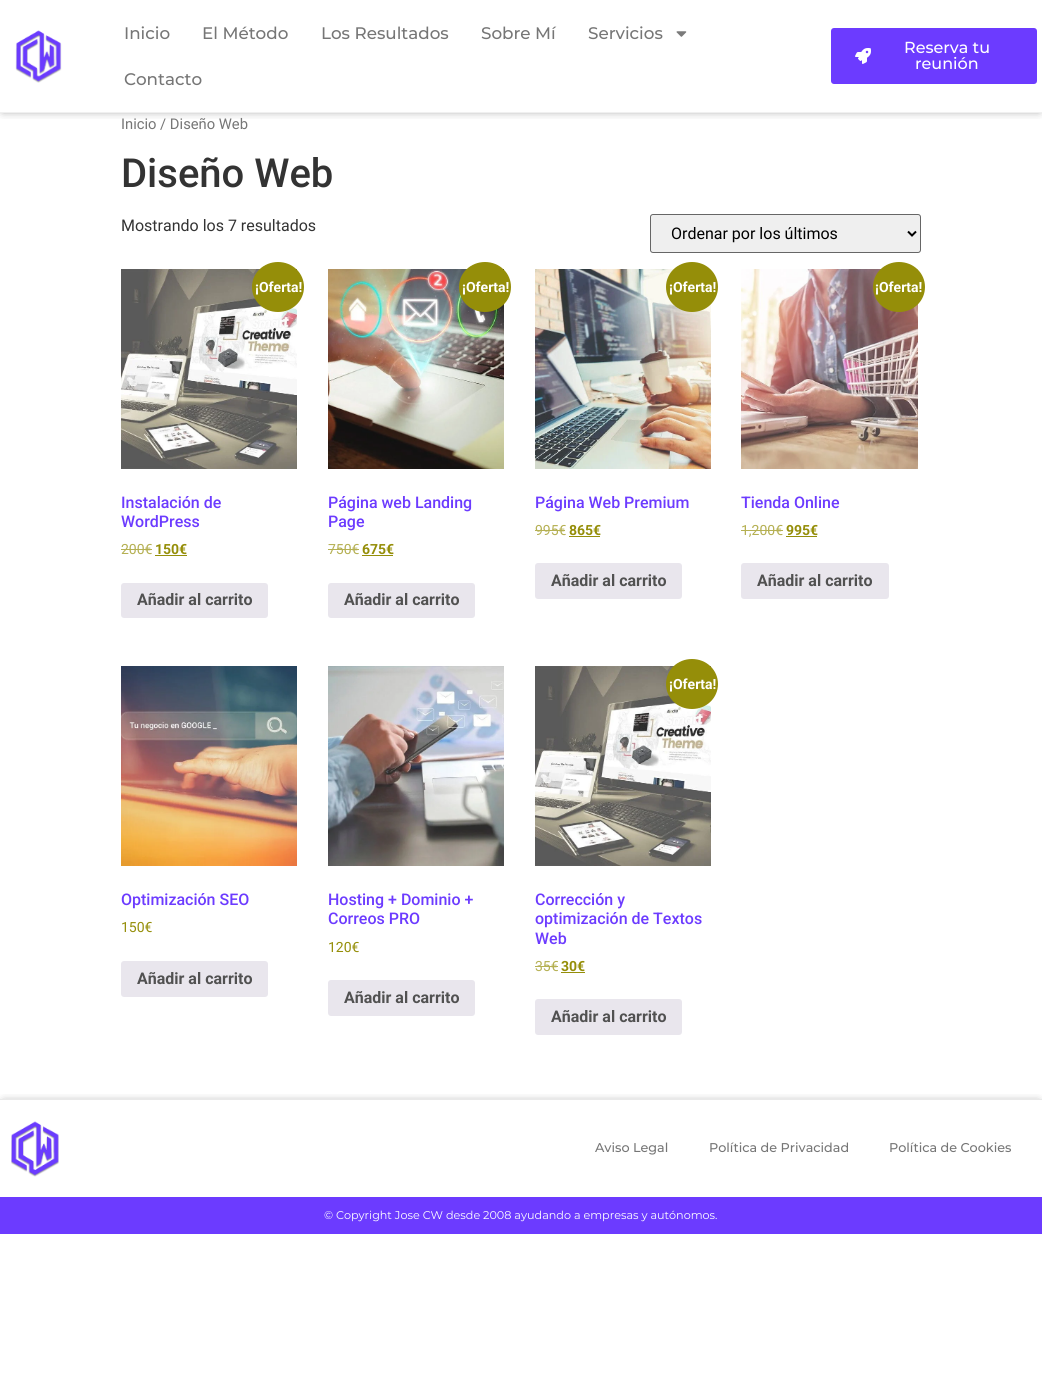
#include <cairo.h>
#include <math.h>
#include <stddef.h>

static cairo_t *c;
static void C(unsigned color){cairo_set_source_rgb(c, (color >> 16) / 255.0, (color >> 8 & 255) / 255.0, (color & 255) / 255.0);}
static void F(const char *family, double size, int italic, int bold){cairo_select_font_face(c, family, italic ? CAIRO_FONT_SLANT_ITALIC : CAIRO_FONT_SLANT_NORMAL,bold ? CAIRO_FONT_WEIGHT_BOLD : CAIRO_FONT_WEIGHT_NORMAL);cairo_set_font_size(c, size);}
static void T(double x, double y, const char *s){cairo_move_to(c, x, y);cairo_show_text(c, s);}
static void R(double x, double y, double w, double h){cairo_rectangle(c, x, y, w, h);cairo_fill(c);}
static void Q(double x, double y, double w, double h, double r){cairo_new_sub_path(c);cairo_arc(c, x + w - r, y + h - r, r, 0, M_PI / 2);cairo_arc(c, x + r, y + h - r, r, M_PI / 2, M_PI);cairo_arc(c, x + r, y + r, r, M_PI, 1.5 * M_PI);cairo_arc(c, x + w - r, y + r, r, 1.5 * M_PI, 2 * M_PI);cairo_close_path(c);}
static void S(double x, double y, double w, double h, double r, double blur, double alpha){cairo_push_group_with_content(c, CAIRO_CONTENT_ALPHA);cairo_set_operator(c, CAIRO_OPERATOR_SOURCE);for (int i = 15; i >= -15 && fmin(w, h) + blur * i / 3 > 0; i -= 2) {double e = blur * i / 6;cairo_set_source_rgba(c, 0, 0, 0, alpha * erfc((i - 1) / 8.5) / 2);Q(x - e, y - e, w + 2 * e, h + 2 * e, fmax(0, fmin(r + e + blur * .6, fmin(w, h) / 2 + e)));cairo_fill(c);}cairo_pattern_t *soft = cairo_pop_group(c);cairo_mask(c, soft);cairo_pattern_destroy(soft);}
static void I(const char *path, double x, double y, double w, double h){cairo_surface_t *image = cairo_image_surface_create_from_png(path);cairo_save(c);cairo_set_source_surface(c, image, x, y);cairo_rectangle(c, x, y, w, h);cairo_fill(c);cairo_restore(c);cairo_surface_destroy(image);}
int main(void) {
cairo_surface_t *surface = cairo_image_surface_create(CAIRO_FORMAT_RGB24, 1042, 1386);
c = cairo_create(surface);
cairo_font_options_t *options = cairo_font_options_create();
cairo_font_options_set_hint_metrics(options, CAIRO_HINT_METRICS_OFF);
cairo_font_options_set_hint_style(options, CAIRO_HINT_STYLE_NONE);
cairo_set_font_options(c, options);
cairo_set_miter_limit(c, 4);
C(0xffffff);
cairo_paint(c);
cairo_save(c);
cairo_rectangle(c,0,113,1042,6);
cairo_clip(c);
C(0x000000);
S(3,3,1036,107,0,5,.5);
cairo_restore(c);
C(0xf0f0f0);
R(0,112,1042,1);
I("1.png",15,30,47,53);
F("Montserrat Medium",16.75,0,0);
C(0x767676);
T(124,39,"Inicio");
T(202,39,"El Método");
T(321,39,"Los Resultados");
T(481,39,"Sobre Mí");
T(588,39,"Servicios");
I("2.png",676,31,11,6);
T(124,85,"Contacto");
C(0x6c3bff);
Q(831,28,206,56,3);
cairo_fill(c);
I("3.png",855,48,16,16);
F("Montserrat Medium",16,0,0);
C(0xffffff);
T(904,53,"Reserva tu");
T(915,69,"reunión");
F("Roboto",14.75,0,0);
C(0x767676);
T(121,129,"Inicio / Diseño Web");
F("Roboto Medium",40,0,0);
C(0x333333);
T(121,187,"Diseño Web");
F("Roboto",16,0,0);
T(121,231,"Mostrando los 7 resultados");
C(0xefefef);
Q(650.5,214.5,270,38,2.5);
cairo_fill_preserve(c);
C(0x666666);
cairo_set_line_width(c,1);
cairo_stroke(c);
cairo_new_path(c);
cairo_move_to(c,908,231.5);
cairo_line_to(c,912,235.5);
cairo_line_to(c,916,231.5);
C(0x000000);
cairo_set_line_width(c,2);
cairo_stroke(c);
T(671,239,"Ordenar por los últimos");
I("4.png",121,269,176,200);
C(0x958e09);
cairo_new_path(c);
cairo_move_to(c,278,262);
cairo_curve_to(c,292.5,262,304,273,304,287);
cairo_curve_to(c,304,301,292.5,312,278,312);
cairo_curve_to(c,263.5,312,252,301,252,287);
cairo_curve_to(c,252,273,263.5,262,278,262);
cairo_close_path(c);
cairo_fill(c);
F("Roboto",14,0,1);
C(0xffffff);
T(255,292,"¡Oferta!");
F("Roboto Medium",16,0,0);
C(0x6c3bff);
T(121,508,"Instalación de");
T(121,527,"WordPress");
F("Roboto",14,0,0);
C(0xb5b053);
T(121,554,"200€");
R(121,549,31,1);
F("Roboto",14,0,1);
C(0x958e09);
T(155,554,"150€");
R(155,555,32,1);
C(0xe9e6ed);
Q(121,583,147,35,3);
cairo_fill(c);
F("Roboto",16,0,1);
C(0x515151);
T(137,605,"Añadir al carrito");
I("5.png",328,269,176,200);
C(0x958e09);
cairo_new_path(c);
cairo_move_to(c,485,262);
cairo_curve_to(c,499.5,262,511,273,511,287);
cairo_curve_to(c,511,301,499.5,312,485,312);
cairo_curve_to(c,470.5,312,459,301,459,287);
cairo_curve_to(c,459,273,470.5,262,485,262);
cairo_close_path(c);
cairo_fill(c);
F("Roboto",14,0,1);
C(0xffffff);
T(462,292,"¡Oferta!");
F("Roboto Medium",16,0,0);
C(0x6c3bff);
T(328,508,"Página web Landing");
T(328,527,"Page");
F("Roboto",14,0,0);
C(0xb5b053);
T(328,554,"750€");
R(328,549,31,1);
F("Roboto",14,0,1);
C(0x958e09);
T(362,554,"675€");
R(362,555,31,1);
C(0xe9e6ed);
Q(328,583,147,35,3);
cairo_fill(c);
F("Roboto",16,0,1);
C(0x515151);
T(344,605,"Añadir al carrito");
I("6.png",535,269,176,200);
C(0x958e09);
cairo_new_path(c);
cairo_move_to(c,692,262);
cairo_curve_to(c,706.5,262,718,273,718,287);
cairo_curve_to(c,718,301,706.5,312,692,312);
cairo_curve_to(c,677.5,312,666,301,666,287);
cairo_curve_to(c,666,273,677.5,262,692,262);
cairo_close_path(c);
cairo_fill(c);
F("Roboto",14,0,1);
C(0xffffff);
T(669,292,"¡Oferta!");
F("Roboto Medium",16,0,0);
C(0x6c3bff);
T(535,508,"Página Web Premium");
F("Roboto",14,0,0);
C(0xb5b053);
T(535,535,"995€");
R(535,530,30,1);
F("Roboto",14,0,1);
C(0x958e09);
T(569,535,"865€");
R(569,536,31,1);
C(0xe9e6ed);
Q(535,563,147,36,3);
cairo_fill(c);
F("Roboto",16,0,1);
C(0x515151);
T(551,586,"Añadir al carrito");
I("7.png",741,269,177,200);
C(0x958e09);
cairo_new_path(c);
cairo_move_to(c,899,262);
cairo_curve_to(c,913.5,262,925,273,925,287);
cairo_curve_to(c,925,301,913.5,312,899,312);
cairo_curve_to(c,884.5,312,873,301,873,287);
cairo_curve_to(c,873,273,884.5,262,899,262);
cairo_close_path(c);
cairo_fill(c);
F("Roboto",14,0,1);
C(0xffffff);
T(875,292,"¡Oferta!");
F("Roboto Medium",16,0,0);
C(0x6c3bff);
T(741,508,"Tienda Online");
F("Roboto",14,0,0);
C(0xb5b053);
T(741,535,"1,200€");
R(741,530,42,1);
F("Roboto",14,0,1);
C(0x958e09);
T(786,535,"995€");
R(786,536,31,1);
C(0xe9e6ed);
Q(741,563,148,36,3);
cairo_fill(c);
F("Roboto",16,0,1);
C(0x515151);
T(757,586,"Añadir al carrito");
I("8.png",121,666,176,200);
F("Roboto Medium",16,0,0);
C(0x6c3bff);
T(121,905,"Optimización SEO");
F("Roboto",14,0,0);
C(0x958e09);
T(121,932,"150€");
C(0xe9e6ed);
Q(121,961,147,36,3);
cairo_fill(c);
F("Roboto",16,0,1);
C(0x515151);
T(137,984,"Añadir al carrito");
I("9.png",328,666,176,200);
F("Roboto Medium",16,0,0);
C(0x6c3bff);
T(328,905,"Hosting + Dominio +");
T(328,924,"Correos PRO");
F("Roboto",14,0,0);
C(0x958e09);
T(328,952,"120€");
C(0xe9e6ed);
Q(328,980,147,36,3);
cairo_fill(c);
F("Roboto",16,0,1);
C(0x515151);
T(344,1003,"Añadir al carrito");
I("10.png",535,666,176,200);
C(0x958e09);
cairo_new_path(c);
cairo_move_to(c,692,659);
cairo_curve_to(c,706.5,659,718,670,718,684);
cairo_curve_to(c,718,698,706.5,709,692,709);
cairo_curve_to(c,677.5,709,666,698,666,684);
cairo_curve_to(c,666,670,677.5,659,692,659);
cairo_close_path(c);
cairo_fill(c);
F("Roboto",14,0,1);
C(0xffffff);
T(669,689,"¡Oferta!");
F("Roboto Medium",16,0,0);
C(0x6c3bff);
T(535,905,"Corrección y");
T(535,924,"optimización de Textos");
T(535,944,"Web");
F("Roboto",14,0,0);
C(0xb5b053);
T(535,971,"35€");
R(535,966,23,1);
F("Roboto",14,0,1);
C(0x958e09);
T(561,971,"30€");
R(561,972,24,1);
C(0xe9e6ed);
Q(535,999,147,36,3);
cairo_fill(c);
F("Roboto",16,0,1);
C(0x515151);
T(551,1022,"Añadir al carrito");
cairo_save(c);
cairo_rectangle(c,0,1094,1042,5);
cairo_clip(c);
C(0x000000);
S(4,1103,1034,90,0,5,.5);
cairo_restore(c);
C(0xe9e9e9);
R(0,1099,1042,1);
I("11.png",11,1121,48,56);
F("Montserrat Medium",12.75,0,0);
C(0x767676);
T(595,1152,"Aviso Legal");
T(709,1152,"Política de Privacidad");
T(889,1152,"Política de Cookies");
C(0x6c3bff);
R(0,1197,1042,37);
F("Montserrat",11.2,0,0);
C(0xffffff);
T(324,1219,"© Copyright Jose CW desde 2008 ayudando a empresas y autónomos.");
cairo_surface_write_to_png(surface, "o.png");
cairo_font_options_destroy(options);
cairo_destroy(c);
cairo_surface_destroy(surface);
return 0;
}
